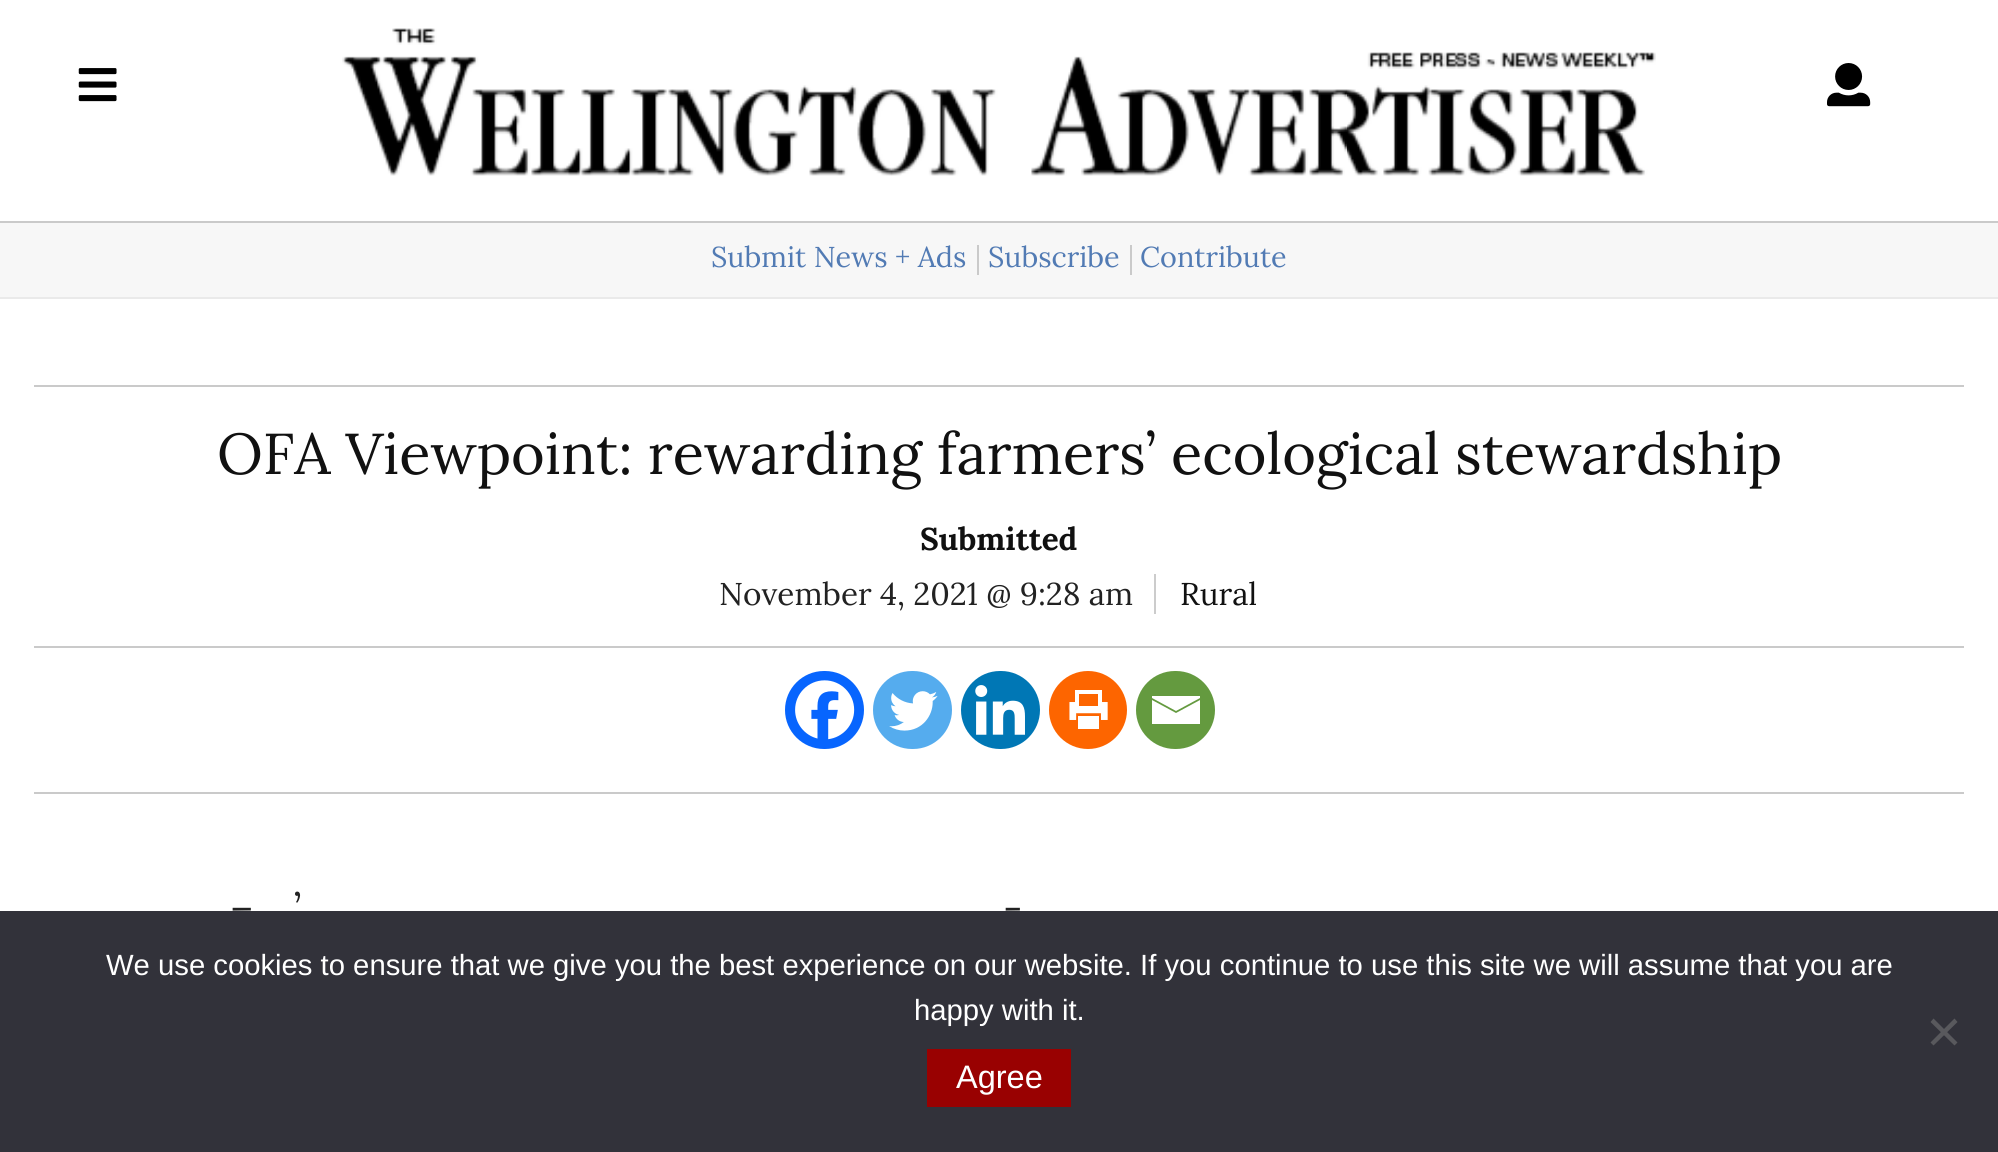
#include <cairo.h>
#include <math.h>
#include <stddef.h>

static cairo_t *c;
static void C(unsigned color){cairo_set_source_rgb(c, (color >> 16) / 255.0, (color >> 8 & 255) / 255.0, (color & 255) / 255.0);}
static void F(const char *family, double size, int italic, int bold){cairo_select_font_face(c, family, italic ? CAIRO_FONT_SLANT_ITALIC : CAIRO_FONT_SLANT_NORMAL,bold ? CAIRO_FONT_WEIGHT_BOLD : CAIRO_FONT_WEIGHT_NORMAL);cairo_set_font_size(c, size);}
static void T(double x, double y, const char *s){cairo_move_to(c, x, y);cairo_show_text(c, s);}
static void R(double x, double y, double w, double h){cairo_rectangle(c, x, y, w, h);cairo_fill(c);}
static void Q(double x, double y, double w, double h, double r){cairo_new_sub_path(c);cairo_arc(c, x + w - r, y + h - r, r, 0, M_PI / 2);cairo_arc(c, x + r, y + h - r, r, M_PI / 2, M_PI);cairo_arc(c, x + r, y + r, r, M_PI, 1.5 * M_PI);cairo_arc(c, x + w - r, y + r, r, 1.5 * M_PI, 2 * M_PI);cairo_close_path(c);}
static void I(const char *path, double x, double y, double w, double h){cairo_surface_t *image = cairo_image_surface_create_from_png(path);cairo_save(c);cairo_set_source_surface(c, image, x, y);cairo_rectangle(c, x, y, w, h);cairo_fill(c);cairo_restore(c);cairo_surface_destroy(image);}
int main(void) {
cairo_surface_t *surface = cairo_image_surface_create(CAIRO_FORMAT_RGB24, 1998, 1152);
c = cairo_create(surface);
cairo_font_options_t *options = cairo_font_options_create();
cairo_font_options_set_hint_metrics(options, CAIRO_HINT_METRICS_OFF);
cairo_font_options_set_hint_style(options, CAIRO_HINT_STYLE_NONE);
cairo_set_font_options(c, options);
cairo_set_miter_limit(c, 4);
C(0xffffff);
cairo_paint(c);
I("1.png",78,68,39,34);
I("2.png",342,28,1314,148);
I("3.png",1827,63,44,44);
C(0xf7f7f7);
R(0,223,1998,74);
C(0xcacaca);
R(0,221,1998,2);
C(0xeaeaea);
R(0,297,1998,2);
C(0xcacaca);
R(977,245,2,30);
F("Lora",28.75,0,0);
C(0x527bb4);
T(711,267,"Submit News + Ads");
C(0xcacaca);
R(1130,245,2,30);
C(0x527bb4);
T(988,267,"Subscribe");
T(1140,267,"Contribute");
C(0xcacaca);
R(34,385,1930,2);
F("Lora",57.6,0,0);
C(0x111111);
T(217,474,"OFA Viewpoint: rewarding farmers’ ecological stewardship");
F("Lora",31.5,0,1);
T(920,550,"Submitted");
F("Lora",31.5,0,0);
C(0x222222);
T(719,605,"November 4, 2021 @ 9:28 am");
C(0x111111);
T(1180,605,"Rural");
C(0xcccccc);
R(1154,574,2,40);
C(0xcacaca);
R(34,646,1930,2);
R(34,792,1930,2);
C(0x0765fe);
Q(785,671,79,78,39);
cairo_fill(c);
I("4.png",795,680,60,60);
C(0x55acee);
Q(873,671,79,78,39);
cairo_fill(c);
I("5.png",889,691,49,40);
C(0x0077b5);
Q(961,671,79,78,39);
cairo_fill(c);
I("6.png",975,685,50,50);
C(0xfd6500);
cairo_arc(c,1088,710,39,0,2 * M_PI);
cairo_fill(c);
I("7.png",1069,690,39,39);
C(0x649a3f);
Q(1136,671,79,78,39);
cairo_fill(c);
C(0xffffff);
cairo_new_path(c);
cairo_move_to(c,1149,696);
cairo_line_to(c,1200,696);
cairo_line_to(c,1200,698);
cairo_line_to(c,1176,711);
cairo_line_to(c,1152,698);
cairo_line_to(c,1152,696);
cairo_move_to(c,1152,700);
cairo_line_to(c,1176,713);
cairo_line_to(c,1200,700);
cairo_line_to(c,1200,724);
cairo_line_to(c,1152,724);
cairo_line_to(c,1152,700);
cairo_fill(c);
F("Lora",40,0,0);
C(0x222222);
T(294,922,"’");
T(230,922,"–");
T(1003,922,"-");
C(0x32323a);
R(0,911,1998,241);
F("Liberation Sans",29.25,0,0);
C(0xffffff);
T(106,975,"We use cookies to ensure that we give you the best experience on our website. If you continue to use this site we will assume that you are");
T(914,1020,"happy with it.");
C(0x59595d);
cairo_new_path(c);
cairo_move_to(c,1954.5,1018.5);
cairo_line_to(c,1957.5,1022);
cairo_line_to(c,1933.5,1045.5);
cairo_line_to(c,1930.5,1042.5);
cairo_close_path(c);
cairo_fill(c);
cairo_new_path(c);
cairo_move_to(c,1930.5,1022);
cairo_line_to(c,1933.5,1018.5);
cairo_line_to(c,1957.5,1042.5);
cairo_line_to(c,1954.5,1045.5);
cairo_close_path(c);
cairo_fill(c);
C(0x990101);
R(927,1049,144,58);
F("Liberation Sans",32.5,0,0);
C(0xffffff);
T(956,1088,"Agree");
cairo_surface_write_to_png(surface, "o.png");
cairo_font_options_destroy(options);
cairo_destroy(c);
cairo_surface_destroy(surface);
return 0;
}
